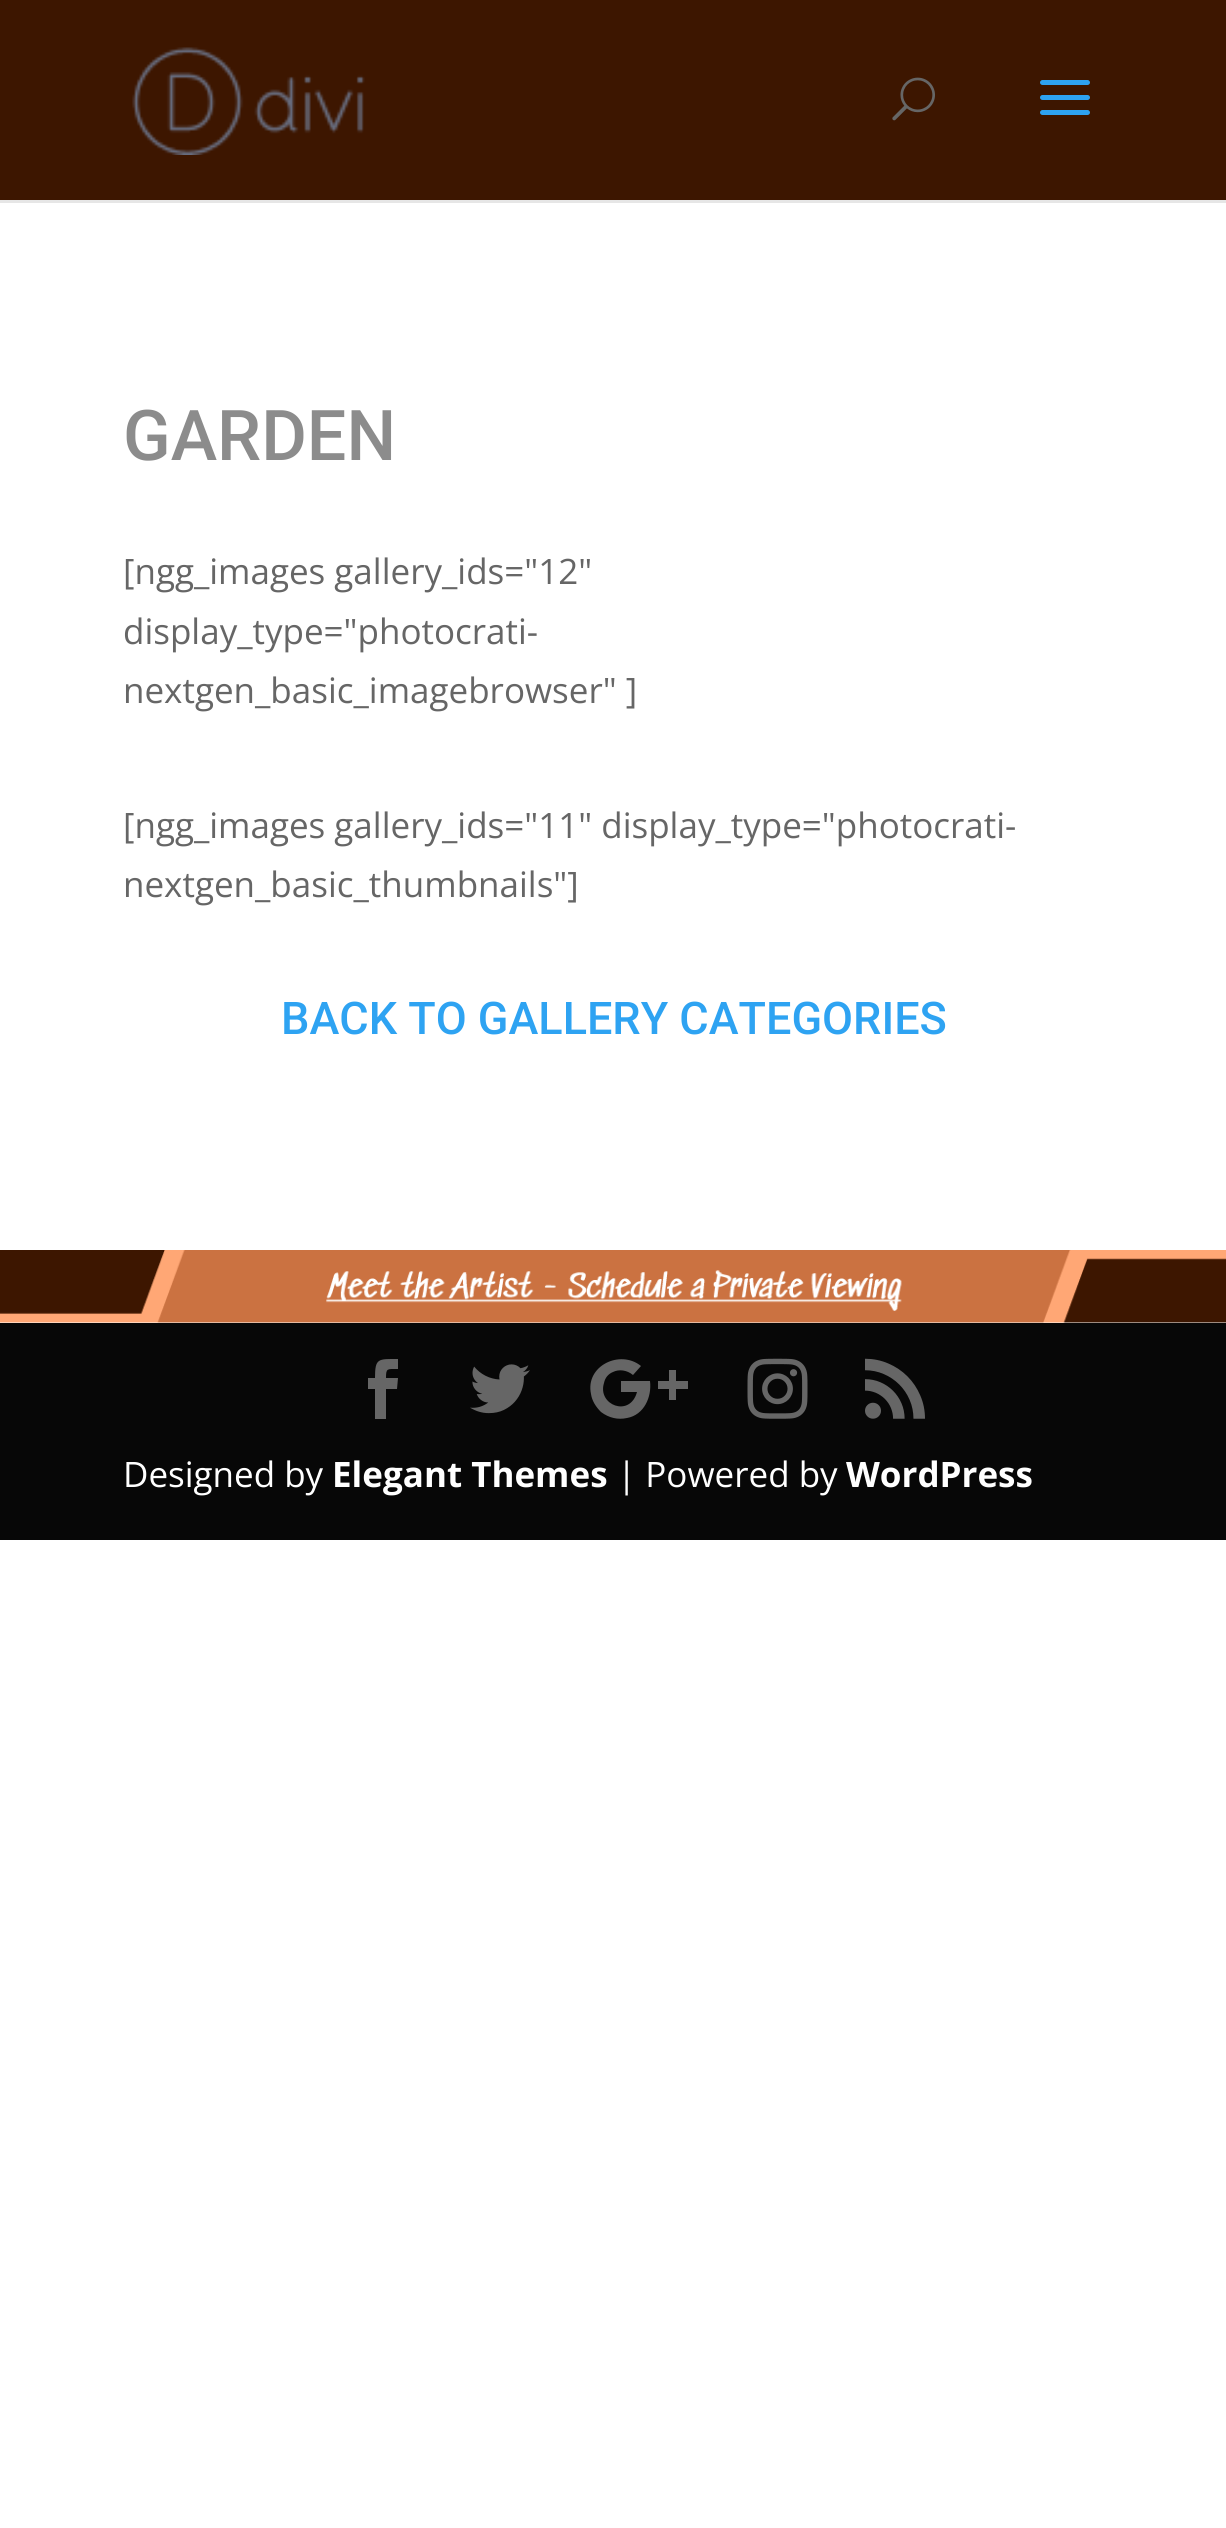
#include <cairo.h>
#include <math.h>
#include <stddef.h>

static cairo_t *c;
static void C(unsigned color){cairo_set_source_rgb(c, (color >> 16) / 255.0, (color >> 8 & 255) / 255.0, (color & 255) / 255.0);}
static void F(const char *family, double size, int italic, int bold){cairo_select_font_face(c, family, italic ? CAIRO_FONT_SLANT_ITALIC : CAIRO_FONT_SLANT_NORMAL,bold ? CAIRO_FONT_WEIGHT_BOLD : CAIRO_FONT_WEIGHT_NORMAL);cairo_set_font_size(c, size);}
static void T(double x, double y, const char *s){cairo_move_to(c, x, y);cairo_show_text(c, s);}
static void R(double x, double y, double w, double h){cairo_rectangle(c, x, y, w, h);cairo_fill(c);}
static void I(const char *path, double x, double y, double w, double h){cairo_surface_t *image = cairo_image_surface_create_from_png(path);cairo_save(c);cairo_set_source_surface(c, image, x, y);cairo_rectangle(c, x, y, w, h);cairo_fill(c);cairo_restore(c);cairo_surface_destroy(image);}
int main(void) {
cairo_surface_t *surface = cairo_image_surface_create(CAIRO_FORMAT_RGB24, 1226, 2528);
c = cairo_create(surface);
cairo_font_options_t *options = cairo_font_options_create();
cairo_font_options_set_hint_metrics(options, CAIRO_HINT_METRICS_OFF);
cairo_font_options_set_hint_style(options, CAIRO_HINT_STYLE_NONE);
cairo_set_font_options(c, options);
cairo_set_miter_limit(c, 4);
C(0xffffff);
cairo_paint(c);
C(0xe6e6e6);
cairo_new_path(c);
cairo_move_to(c,0,200);
cairo_line_to(c,0,203);
cairo_line_to(c,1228,203);
cairo_line_to(c,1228,3);
cairo_line_to(c,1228,200);
cairo_close_path(c);
cairo_fill(c);
C(0x3d1600);
R(0,0,1226,200);
I("1.png",132,47,233,108);
I("2.png",892,77,43,44);
I("3.png",1040,80,50,35);
F("Roboto Medium",70,0,0);
C(0x8c8c8c);
T(123,460,"GARDEN");
F("Open Sans",35,0,0);
C(0x666666);
T(123,584,"[ngg_images gallery_ids=\"12\"");
T(123,644,"display_type=\"photocrati-");
T(123,703,"nextgen_basic_imagebrowser\" ]");
T(123,838,"[ngg_images gallery_ids=\"11\" display_type=\"photocrati-");
T(123,897,"nextgen_basic_thumbnails\"]");
F("Roboto Medium",45,0,0);
C(0x2ea3f2);
T(281,1034,"BACK TO GALLERY CATEGORIES");
I("4.png",0,1250,1226,73);
C(0x070707);
R(0,1323,1226,217);
C(0x666666);
cairo_new_path(c);
cairo_move_to(c,375,1419);
cairo_line_to(c,386,1419);
cairo_line_to(c,386,1389);
cairo_line_to(c,397,1389);
cairo_line_to(c,398,1378);
cairo_line_to(c,386,1378);
cairo_curve_to(c,386,1368,387,1369,398,1369);
cairo_line_to(c,398,1359);
cairo_curve_to(c,378,1359,375,1358,375,1378);
cairo_line_to(c,368,1378);
cairo_line_to(c,368,1389);
cairo_line_to(c,375,1389);
cairo_close_path(c);
cairo_fill(c);
I("5.png",470,1364,60,50);
cairo_new_path(c);
cairo_move_to(c,621,1381);
cairo_line_to(c,621,1392);
cairo_line_to(c,637,1392);
cairo_curve_to(c,630,1418,597,1405,604,1383);
cairo_curve_to(c,605,1378,608,1374,613,1372);
cairo_curve_to(c,619,1369,627,1370,633,1375);
cairo_line_to(c,641,1366);
cairo_curve_to(c,620,1349,585,1366,591,1394);
cairo_curve_to(c,592,1401,596,1407,601,1412);
cairo_curve_to(c,609,1418,618,1420,627,1418);
cairo_curve_to(c,644,1415,652,1397,650,1381);
cairo_close_path(c);
cairo_move_to(c,688,1381);
cairo_line_to(c,676,1381);
cairo_line_to(c,676,1370);
cairo_line_to(c,669,1370);
cairo_line_to(c,669,1381);
cairo_line_to(c,658,1381);
cairo_line_to(c,658,1389);
cairo_line_to(c,669,1389);
cairo_line_to(c,669,1400);
cairo_line_to(c,676,1400);
cairo_line_to(c,676,1389);
cairo_line_to(c,688,1389);
cairo_close_path(c);
cairo_fill(c);
I("6.png",747,1358,61,61);
I("7.png",865,1358,60,61);
F("Open Sans",35,0,0);
C(0xffffff);
T(123,1487,"Designed by");
F("Open Sans",35,0,1);
T(332,1487,"Elegant Themes");
F("Open Sans",35,0,0);
T(617,1487,"| Powered by");
F("Open Sans",35,0,1);
T(846,1487,"WordPress");
cairo_surface_write_to_png(surface, "o.png");
cairo_font_options_destroy(options);
cairo_destroy(c);
cairo_surface_destroy(surface);
return 0;
}
